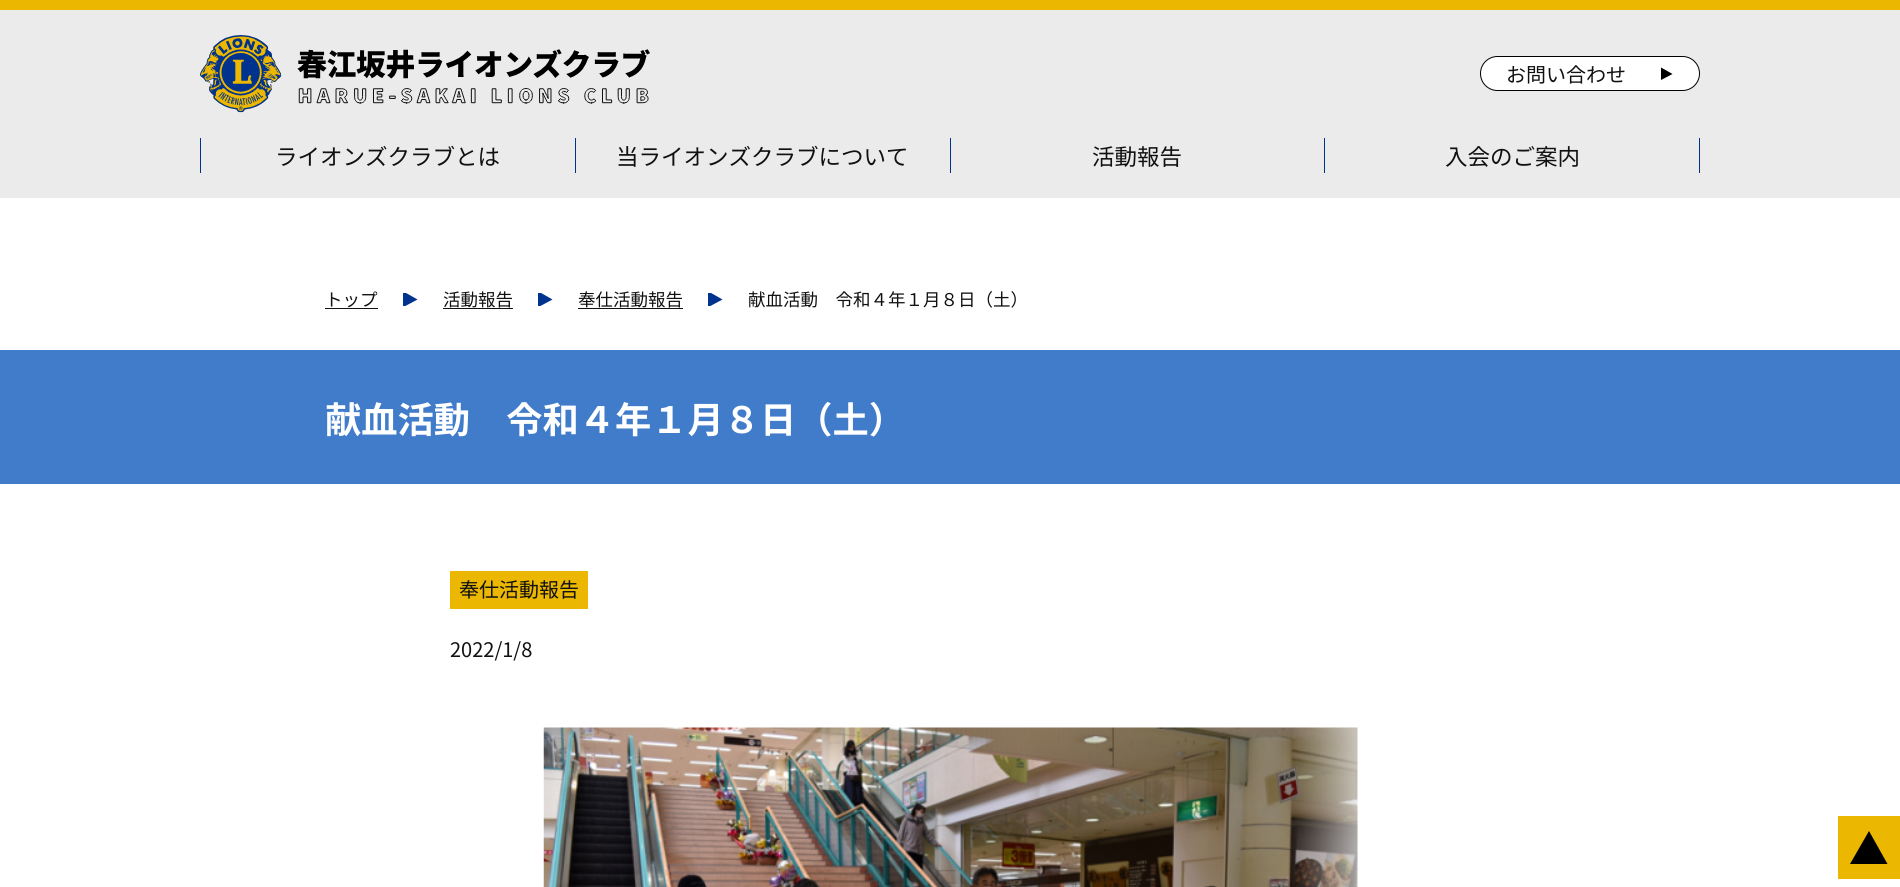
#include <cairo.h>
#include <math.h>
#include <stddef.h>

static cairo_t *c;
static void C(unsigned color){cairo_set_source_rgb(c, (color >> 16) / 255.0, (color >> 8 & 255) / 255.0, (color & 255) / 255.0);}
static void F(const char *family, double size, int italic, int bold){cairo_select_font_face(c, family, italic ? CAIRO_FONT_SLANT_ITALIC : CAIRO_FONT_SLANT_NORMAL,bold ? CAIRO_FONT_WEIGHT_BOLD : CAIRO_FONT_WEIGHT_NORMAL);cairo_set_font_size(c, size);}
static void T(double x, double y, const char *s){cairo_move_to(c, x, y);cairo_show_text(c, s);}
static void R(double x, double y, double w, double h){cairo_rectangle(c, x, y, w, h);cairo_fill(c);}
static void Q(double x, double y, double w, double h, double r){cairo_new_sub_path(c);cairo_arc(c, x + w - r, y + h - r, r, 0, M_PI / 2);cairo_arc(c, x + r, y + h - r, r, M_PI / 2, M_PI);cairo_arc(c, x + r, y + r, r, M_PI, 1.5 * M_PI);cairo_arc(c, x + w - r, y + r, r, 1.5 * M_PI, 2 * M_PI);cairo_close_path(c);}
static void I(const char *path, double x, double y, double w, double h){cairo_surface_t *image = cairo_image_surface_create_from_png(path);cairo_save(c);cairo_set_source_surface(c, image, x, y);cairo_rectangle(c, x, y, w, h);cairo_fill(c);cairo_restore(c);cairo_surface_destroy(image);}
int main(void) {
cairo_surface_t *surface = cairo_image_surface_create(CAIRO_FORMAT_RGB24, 1900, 887);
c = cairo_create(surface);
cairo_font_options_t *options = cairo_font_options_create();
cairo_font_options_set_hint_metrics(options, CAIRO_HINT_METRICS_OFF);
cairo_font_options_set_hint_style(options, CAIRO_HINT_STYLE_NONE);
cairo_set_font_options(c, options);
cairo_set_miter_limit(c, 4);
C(0xffffff);
cairo_paint(c);
C(0xebebeb);
R(0,10,1900,188);
C(0xebb700);
R(0,0,1900,10);
I("1.png",200,35,450,78);
C(0xffffff);
Q(1480.5,56.5,219,34,17);
cairo_fill_preserve(c);
C(0x000000);
cairo_set_line_width(c,1);
cairo_stroke(c);
F("Noto Sans JP",20,0,0);
C(0x111111);
T(1506,82,"お問い合わせ");
C(0x000000);
cairo_new_path(c);
cairo_move_to(c,1672.5,74);
cairo_line_to(c,1661,80);
cairo_line_to(c,1661,67.5);
cairo_close_path(c);
cairo_fill(c);
C(0x00338d);
R(200,138,1,35);
R(575,138,1,35);
F("Noto Sans JP",22.5,0,0);
C(0x111111);
T(275,165,"ライオンズクラブとは");
C(0x00338d);
R(950,138,1,35);
C(0x111111);
T(616,165,"当ライオンズクラブについて");
C(0x00338d);
R(1324,138,1,35);
C(0x111111);
T(1092,165,"活動報告");
C(0x00338d);
R(1699,138,1,35);
C(0x111111);
T(1445,165,"入会のご案内");
F("Noto Sans JP",17.5,0,0);
T(325,306,"トップ");
R(325,308,53,1);
cairo_save(c);
cairo_rectangle(c,403,293,15,13);
cairo_clip(c);
C(0x00338d);
cairo_new_path(c);
cairo_move_to(c,417.5,299.5);
cairo_line_to(c,402.5,307.5);
cairo_line_to(c,402.5,291);
cairo_close_path(c);
cairo_fill(c);
cairo_restore(c);
T(443,306,"活動報告");
R(443,308,70,1);
cairo_save(c);
cairo_rectangle(c,538,293,15,13);
cairo_clip(c);
C(0x00338d);
cairo_new_path(c);
cairo_move_to(c,552.5,299.5);
cairo_line_to(c,537.5,307.5);
cairo_line_to(c,537.5,291);
cairo_close_path(c);
cairo_fill(c);
cairo_restore(c);
T(578,306,"奉仕活動報告");
R(578,308,105,1);
cairo_save(c);
cairo_rectangle(c,708,293,15,13);
cairo_clip(c);
C(0x00338d);
cairo_new_path(c);
cairo_move_to(c,722.5,299.5);
cairo_line_to(c,707.5,307.5);
cairo_line_to(c,707.5,291);
cairo_close_path(c);
cairo_fill(c);
cairo_restore(c);
T(748,306,"献血活動　令和４年１月８日（土）");
C(0x407cca);
R(0,350,1900,134);
F("Noto Sans JP",36.25,0,1);
C(0xffffff);
T(325,433,"献血活動　令和４年１月８日（土）");
C(0xebb700);
R(450,571,138,38);
F("Noto Sans JP",20,0,0);
C(0x111111);
T(459,597,"奉仕活動報告");
T(450,657,"2022/1/8");
I("2.png",543,727,815,160);
C(0xebb700);
R(1838,816,62,63);
C(0x000000);
cairo_new_path(c);
cairo_move_to(c,1869,831);
cairo_line_to(c,1887.5,864);
cairo_line_to(c,1850,864);
cairo_close_path(c);
cairo_fill(c);
cairo_surface_write_to_png(surface, "o.png");
cairo_font_options_destroy(options);
cairo_destroy(c);
cairo_surface_destroy(surface);
return 0;
}
